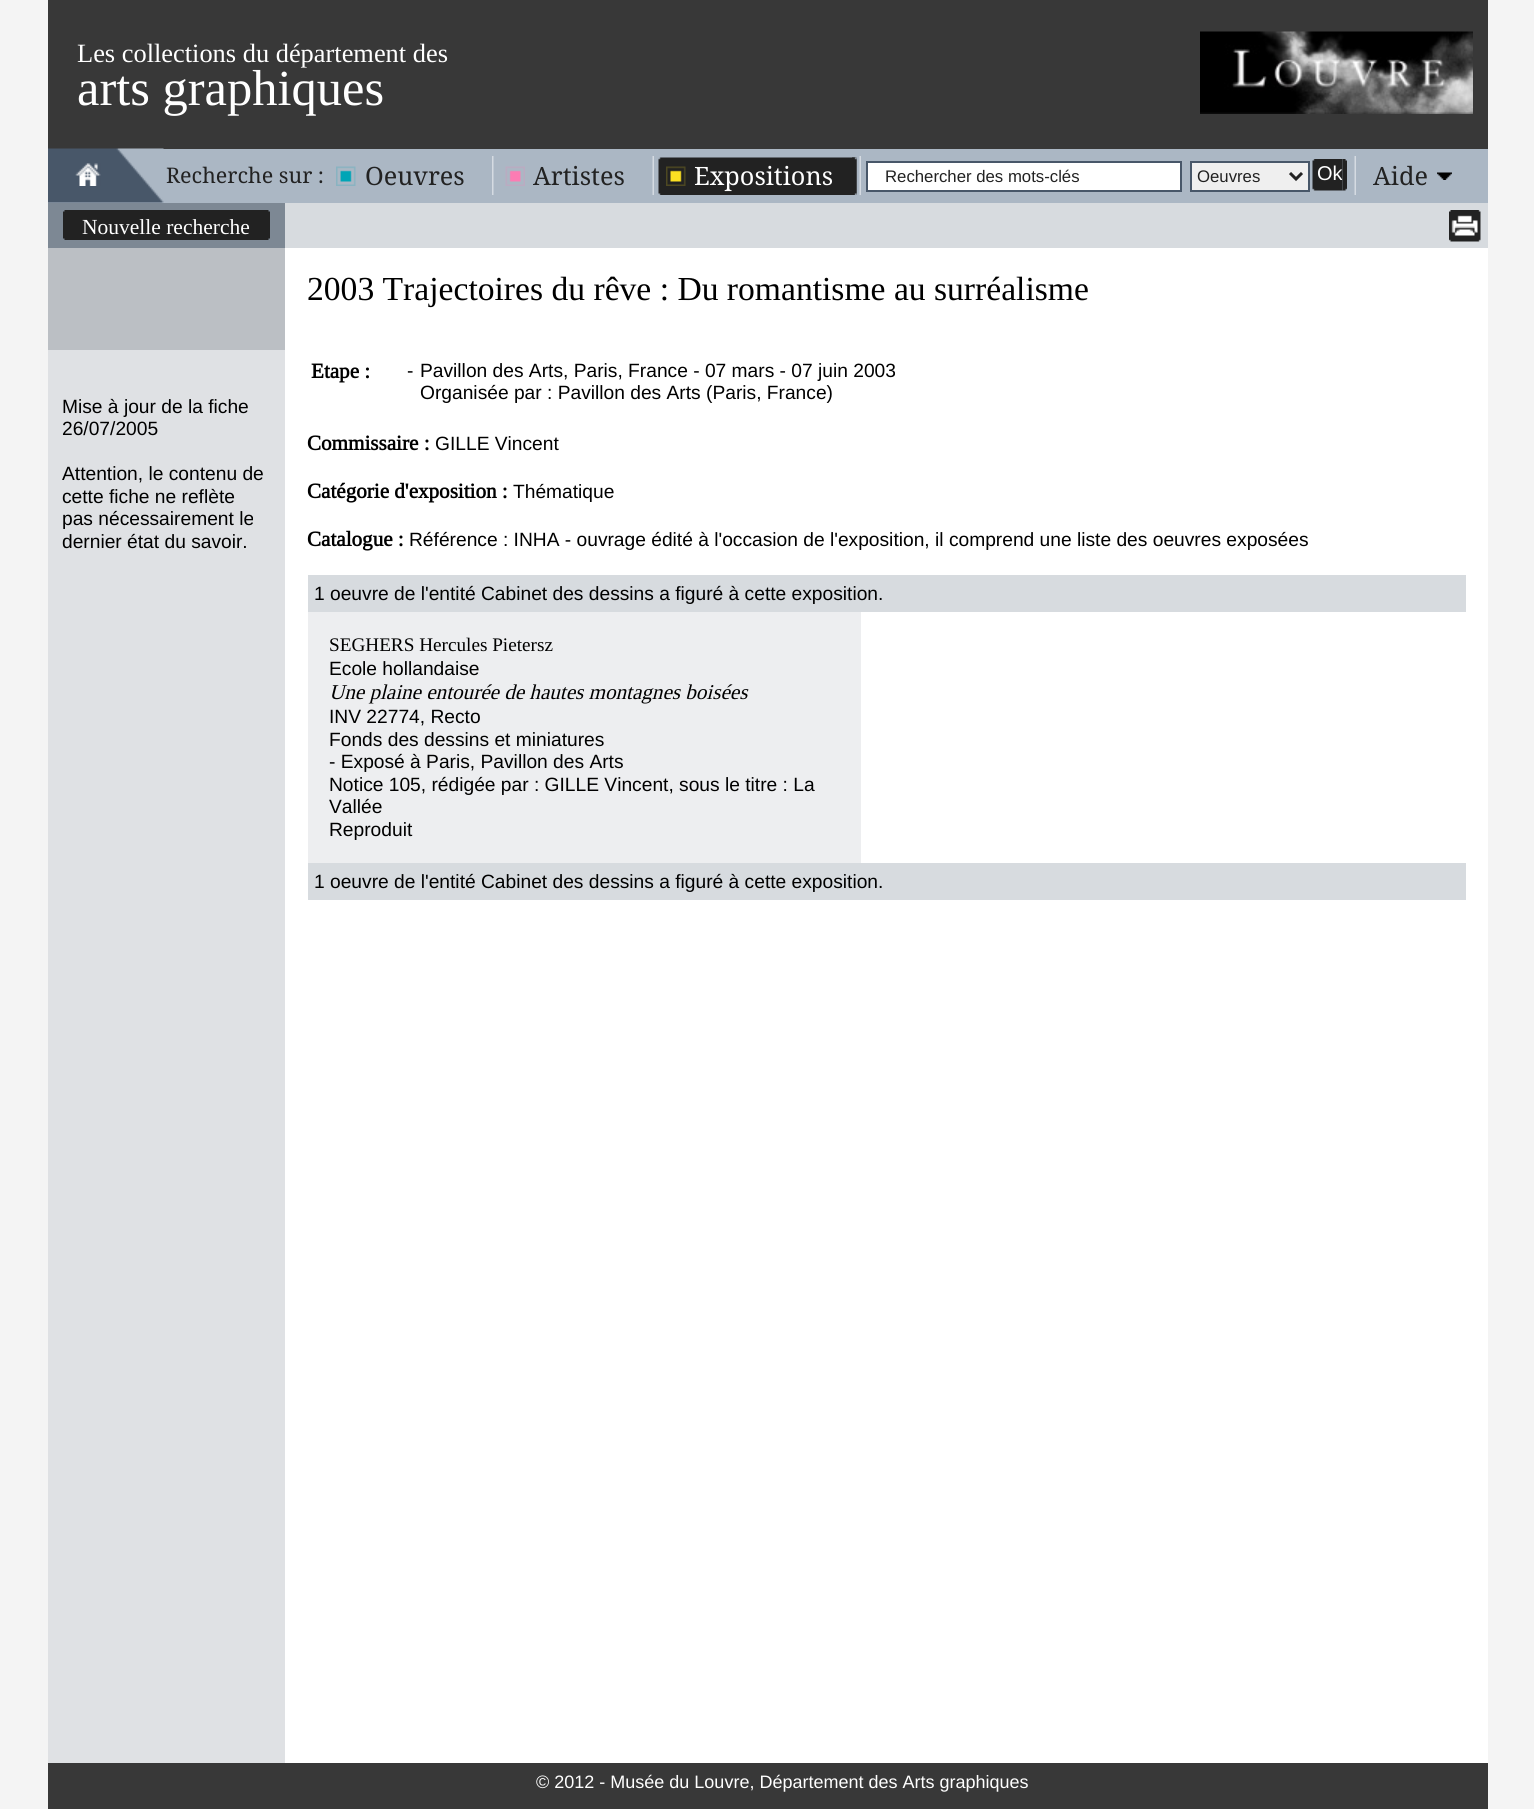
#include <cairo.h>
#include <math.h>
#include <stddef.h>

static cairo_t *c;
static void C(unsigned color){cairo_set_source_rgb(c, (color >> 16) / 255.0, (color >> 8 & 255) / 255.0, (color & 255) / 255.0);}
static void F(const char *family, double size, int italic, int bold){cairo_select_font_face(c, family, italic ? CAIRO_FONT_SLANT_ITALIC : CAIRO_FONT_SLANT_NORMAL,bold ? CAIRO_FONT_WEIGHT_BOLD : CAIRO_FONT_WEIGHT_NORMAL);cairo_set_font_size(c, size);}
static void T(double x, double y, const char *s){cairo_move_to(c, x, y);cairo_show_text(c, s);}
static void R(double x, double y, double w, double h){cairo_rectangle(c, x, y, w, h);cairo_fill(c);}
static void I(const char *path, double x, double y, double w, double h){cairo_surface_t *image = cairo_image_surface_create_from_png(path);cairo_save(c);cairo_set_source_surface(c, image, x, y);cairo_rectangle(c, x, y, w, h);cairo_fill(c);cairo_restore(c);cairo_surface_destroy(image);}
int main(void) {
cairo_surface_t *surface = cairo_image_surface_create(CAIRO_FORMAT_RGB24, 1534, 1809);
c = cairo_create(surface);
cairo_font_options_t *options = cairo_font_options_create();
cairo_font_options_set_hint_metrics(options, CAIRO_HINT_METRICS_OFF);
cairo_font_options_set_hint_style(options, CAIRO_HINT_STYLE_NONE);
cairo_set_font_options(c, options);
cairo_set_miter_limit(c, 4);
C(0xf4f4f4);
cairo_paint(c);
C(0xffffff);
R(285,248,1203,1515);
C(0x383838);
R(48,0,1440,149);
F("Tinos",26.4,0,0);
C(0xffffff);
T(77,62,"Les collections du département des");
I("1.png",1200,31,273,83);
F("Tinos",50.5,0,0);
T(77,105,"arts graphiques");
C(0xabb7c4);
R(48,149,1440,54);
I("2.png",48,148,116,55);
I("3.png",75,163,26,23);
F("Droid Serif",21.5,0,0);
C(0x222222);
T(166,183,"Recherche sur :");
I("4.png",492,156,2,39);
I("5.png",336,166,20,20);
F("Droid Serif",25.25,0,0);
T(365,185,"Oeuvres");
I("6.png",652,156,2,39);
I("7.png",505,166,20,20);
T(533,185,"Artistes");
I("6.png",859,156,2,39);
I("8.png",658,157,199,38);
I("9.png",852,157,5,38);
I("10.png",666,166,20,20);
C(0xffffff);
T(694,185,"Expositions");
cairo_rectangle(c,867,162,314,29);
cairo_fill_preserve(c);
C(0x485769);
cairo_stroke(c);
F("Liberation Sans",16.75,0,0);
C(0x222222);
T(885,182,"Rechercher des mots-clés");
C(0xefefef);
cairo_rectangle(c,1191,162,118,29);
cairo_fill_preserve(c);
C(0x485769);
cairo_stroke(c);
cairo_new_path(c);
cairo_move_to(c,1290,173);
cairo_line_to(c,1296,179);
cairo_line_to(c,1302,173);
C(0x222222);
cairo_set_line_width(c,3);
cairo_stroke(c);
T(1197,182,"Oeuvres");
I("11.png",1312,159,31,32);
F("Liberation Sans",20,0,0);
C(0xffffff);
T(1317,180,"Ok");
I("12.png",1342,159,5,32);
I("6.png",1354,156,2,39);
F("Droid Serif",25.25,0,0);
C(0x222222);
T(1373,185,"Aide");
I("13.png",1437,172,15,8);
C(0xdfe1e4);
R(48,350,237,1413);
C(0x7d8894);
R(48,203,237,45);
I("14.png",63,210,207,27);
F("Tinos",21.5,0,0);
C(0xffffff);
T(82,234,"Nouvelle recherche");
I("15.png",63,237,207,3);
C(0xbbbfc4);
R(48,248,237,102);
F("Liberation Sans",19.2,0,0);
C(0x000000);
T(62,413,"Mise à jour de la fiche");
T(62,435,"26/07/2005");
T(62,480,"Attention, le contenu de");
T(62,503,"cette fiche ne reflète");
T(62,525,"pas nécessairement le");
T(62,548,"dernier état du savoir.");
C(0xd7dbdf);
R(285,203,1203,45);
I("16.png",1449,210,32,32);
F("Tinos",33.6,0,0);
C(0x000000);
T(307,300,"2003 Trajectoires du rêve : Du romantisme au surréalisme");
F("Tinos",21.1,0,1);
T(311,378,"Etape :");
F("Liberation Sans",19.2,0,0);
T(407,377,"-");
T(420,377,"Pavillon des Arts, Paris, France - 07 mars - 07 juin 2003");
T(420,399,"Organisée par : Pavillon des Arts (Paris, France)");
F("Tinos",21.1,0,1);
T(307,450,"Commissaire :");
F("Liberation Sans",19.2,0,0);
T(435,450,"GILLE Vincent");
F("Tinos",21.1,0,1);
T(307,498,"Catégorie d'exposition :");
F("Liberation Sans",19.2,0,0);
T(513,498,"Thématique");
F("Tinos",21.1,0,1);
T(307,546,"Catalogue :");
F("Liberation Sans",19.2,0,0);
T(409,546,"Référence : INHA - ouvrage édité à l'occasion de l'exposition, il comprend une liste des oeuvres exposées");
C(0xd7dbdf);
R(308,575,1158,37);
C(0x000000);
T(314,600,"1 oeuvre de l'entité Cabinet des dessins a figuré à cette exposition.");
C(0xedeef0);
R(308,612,553,251);
F("Tinos",19.2,0,0);
C(0x000000);
T(329,651,"SEGHERS Hercules Pietersz");
F("Liberation Sans",19.2,0,0);
T(329,675,"Ecole hollandaise");
F("Tinos",21.1,1,0);
T(329,699,"Une plaine entourée de hautes montagnes boisées");
F("Liberation Sans",19.2,0,0);
T(329,723,"INV 22774, Recto");
T(329,746,"Fonds des dessins et miniatures");
T(329,768,"- Exposé à Paris, Pavillon des Arts");
T(329,791,"Notice 105, rédigée par : GILLE Vincent, sous le titre : La");
T(329,813,"Vallée");
T(329,836,"Reproduit");
C(0xd7dbdf);
R(308,863,1158,37);
C(0x000000);
T(314,888,"1 oeuvre de l'entité Cabinet des dessins a figuré à cette exposition.");
C(0x383838);
R(48,1763,1440,46);
F("Liberation Sans",18,0,0);
C(0xffffff);
T(536,1788,"© 2012 - Musée du Louvre, Département des Arts graphiques");
cairo_surface_write_to_png(surface, "o.png");
cairo_font_options_destroy(options);
cairo_destroy(c);
cairo_surface_destroy(surface);
return 0;
}
